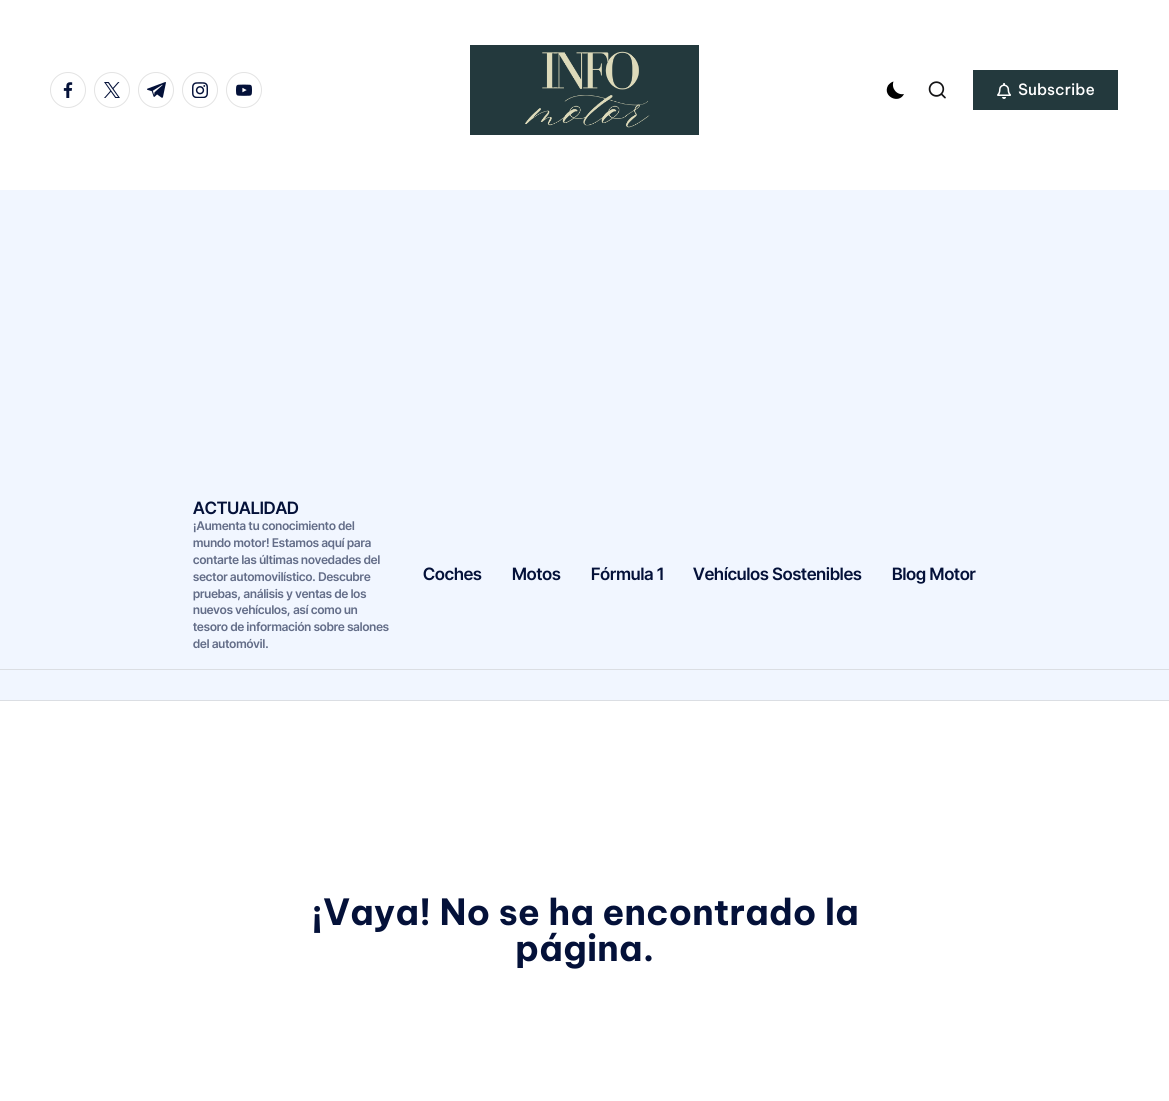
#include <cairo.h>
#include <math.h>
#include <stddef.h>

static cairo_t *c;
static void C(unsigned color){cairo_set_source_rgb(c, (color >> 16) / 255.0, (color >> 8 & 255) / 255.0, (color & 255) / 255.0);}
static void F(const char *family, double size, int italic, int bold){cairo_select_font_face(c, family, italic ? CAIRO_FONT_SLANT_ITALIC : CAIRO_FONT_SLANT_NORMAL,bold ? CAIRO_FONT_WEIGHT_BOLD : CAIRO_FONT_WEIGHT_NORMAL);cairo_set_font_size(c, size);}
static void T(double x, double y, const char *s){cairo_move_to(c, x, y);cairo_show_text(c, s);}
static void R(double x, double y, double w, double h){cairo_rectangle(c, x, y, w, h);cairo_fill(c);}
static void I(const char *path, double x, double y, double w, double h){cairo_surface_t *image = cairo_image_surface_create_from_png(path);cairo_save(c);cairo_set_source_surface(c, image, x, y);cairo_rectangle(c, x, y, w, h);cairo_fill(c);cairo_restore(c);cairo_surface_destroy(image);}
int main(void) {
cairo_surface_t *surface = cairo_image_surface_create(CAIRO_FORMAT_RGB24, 1169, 1101);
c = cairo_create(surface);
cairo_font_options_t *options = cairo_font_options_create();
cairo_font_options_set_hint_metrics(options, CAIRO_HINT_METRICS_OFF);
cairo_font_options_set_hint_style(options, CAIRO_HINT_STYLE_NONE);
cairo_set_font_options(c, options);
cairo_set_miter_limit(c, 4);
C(0xffffff);
cairo_paint(c);
cairo_arc(c,68,90,17.5,0,2 * M_PI);
C(0xe3e3e3);
cairo_set_line_width(c,1);
cairo_stroke(c);
I("1.png",63,82,10,16);
cairo_arc(c,112,90,17.5,0,2 * M_PI);
cairo_stroke(c);
I("2.png",104,82,16,16);
cairo_arc(c,156,90,17.5,0,2 * M_PI);
cairo_stroke(c);
I("3.png",147,82,19,16);
cairo_arc(c,200,90,17.5,0,2 * M_PI);
cairo_stroke(c);
I("4.png",192,82,16,16);
cairo_arc(c,244,90,17.5,0,2 * M_PI);
cairo_stroke(c);
I("5.png",236,84,16,12);
I("6.png",470,45,229,90);
C(0x000000);
cairo_new_path(c);
cairo_move_to(c,904,94);
cairo_curve_to(c,897,95.5,891,88.5,893.5,81.5);
cairo_curve_to(c,891.5,82,889.5,83.5,888,85.5);
cairo_curve_to(c,882,96.5,899,104.5,904,94);
cairo_close_path(c);
cairo_fill(c);
I("7.png",928,81,18,18);
C(0x23393d);
R(973,70,145,40);
I("8.png",997,83,14,16);
F("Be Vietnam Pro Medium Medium",15.5,0,0);
C(0xffffff);
T(1018,95,"Subscribe");
C(0xf1f6ff);
R(0,190,1169,479);
F("Inter Tight SemiBold",17,0,0);
C(0x041139);
T(193,514,"ACTUALIDAD");
F("Inter Tight SemiBold",12,0,0);
C(0x636d88);
T(193,530,"¡Aumenta tu conocimiento del");
T(193,547,"mundo motor! Estamos aquí para");
T(193,564,"contarte las últimas novedades del");
T(193,581,"sector automovilístico. Descubre");
T(193,598,"pruebas, análisis y ventas de los");
T(193,614,"nuevos vehículos, así como un");
T(193,631,"tesoro de información sobre salones");
T(193,648,"del automóvil.");
F("Inter Tight SemiBold",17,0,0);
C(0x041139);
T(423,580,"Coches");
T(512,580,"Motos");
T(591,580,"Fórmula 1");
T(693,580,"Vehículos Sostenibles");
T(892,580,"Blog Motor");
C(0xf1f6ff);
R(0,670,1169,30);
C(0xdbdee3);
R(0,669,1169,1);
R(0,700,1169,1);
F("Be Vietnam Pro",36,0,1);
C(0x041139);
T(311,925,"¡Vaya! No se ha encontrado la");
T(515,961,"página.");
cairo_surface_write_to_png(surface, "o.png");
cairo_font_options_destroy(options);
cairo_destroy(c);
cairo_surface_destroy(surface);
return 0;
}
